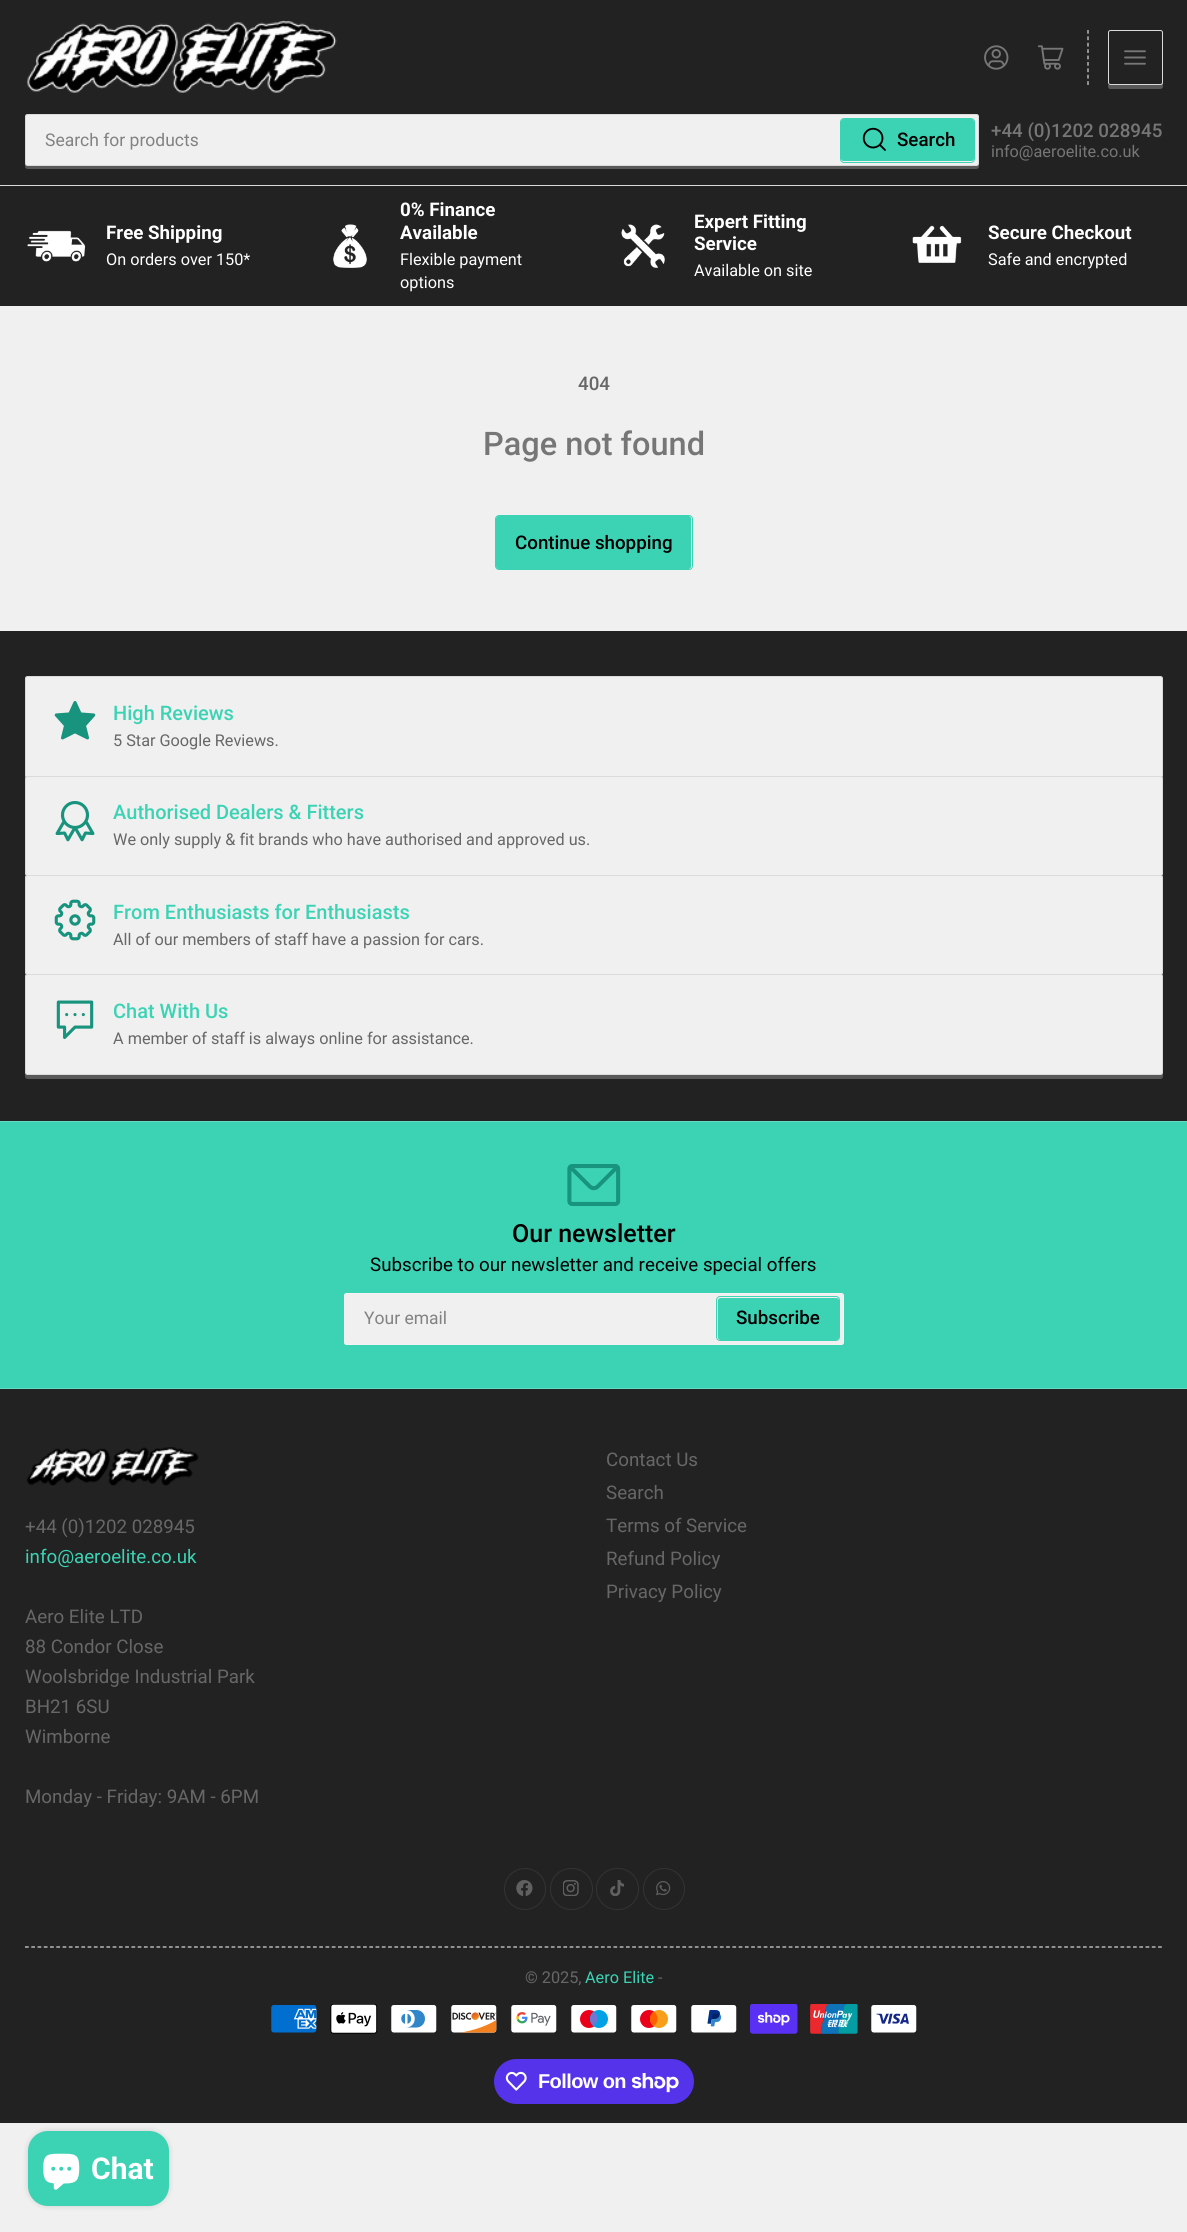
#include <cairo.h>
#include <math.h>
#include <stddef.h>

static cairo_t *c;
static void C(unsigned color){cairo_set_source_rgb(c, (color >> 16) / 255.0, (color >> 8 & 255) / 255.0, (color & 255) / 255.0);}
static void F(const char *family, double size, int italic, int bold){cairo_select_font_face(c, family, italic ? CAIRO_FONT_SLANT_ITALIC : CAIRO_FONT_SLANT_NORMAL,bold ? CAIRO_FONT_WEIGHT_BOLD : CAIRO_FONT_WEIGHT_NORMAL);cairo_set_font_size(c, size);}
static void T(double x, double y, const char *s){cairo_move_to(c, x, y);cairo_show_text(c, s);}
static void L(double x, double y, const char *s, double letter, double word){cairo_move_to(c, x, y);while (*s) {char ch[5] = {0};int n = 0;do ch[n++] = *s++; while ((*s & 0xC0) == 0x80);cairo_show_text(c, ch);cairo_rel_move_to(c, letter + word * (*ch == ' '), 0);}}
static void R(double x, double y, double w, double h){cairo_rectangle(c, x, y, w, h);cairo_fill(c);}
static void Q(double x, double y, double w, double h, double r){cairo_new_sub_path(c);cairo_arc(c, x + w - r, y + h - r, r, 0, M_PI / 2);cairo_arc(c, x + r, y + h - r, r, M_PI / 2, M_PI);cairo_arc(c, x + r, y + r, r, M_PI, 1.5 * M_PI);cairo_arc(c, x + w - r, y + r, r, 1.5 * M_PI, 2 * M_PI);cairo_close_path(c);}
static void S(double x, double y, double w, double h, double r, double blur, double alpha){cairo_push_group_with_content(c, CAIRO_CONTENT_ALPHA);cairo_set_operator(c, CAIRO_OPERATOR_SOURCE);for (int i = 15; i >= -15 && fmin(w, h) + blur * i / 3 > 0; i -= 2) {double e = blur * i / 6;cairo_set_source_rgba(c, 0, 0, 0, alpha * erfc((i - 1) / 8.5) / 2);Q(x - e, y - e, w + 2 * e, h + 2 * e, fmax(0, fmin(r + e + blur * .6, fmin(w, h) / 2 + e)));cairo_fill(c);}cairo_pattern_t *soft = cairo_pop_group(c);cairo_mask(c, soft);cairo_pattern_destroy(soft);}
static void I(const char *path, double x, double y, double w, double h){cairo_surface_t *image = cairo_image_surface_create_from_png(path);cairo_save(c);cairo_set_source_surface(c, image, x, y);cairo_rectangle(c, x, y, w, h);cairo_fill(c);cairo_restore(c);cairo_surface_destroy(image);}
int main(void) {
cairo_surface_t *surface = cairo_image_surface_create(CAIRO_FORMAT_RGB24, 1187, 2232);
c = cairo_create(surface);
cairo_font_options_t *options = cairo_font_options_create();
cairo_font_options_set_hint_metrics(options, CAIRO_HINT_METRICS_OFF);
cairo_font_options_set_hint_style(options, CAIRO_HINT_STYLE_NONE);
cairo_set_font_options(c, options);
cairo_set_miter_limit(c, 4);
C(0xf0f0f0);
cairo_paint(c);
C(0xdadada);
R(0,185,1187,1);
C(0x222222);
R(0,0,1187,185);
I("1.png",26,20,311,73);
I("2.png",984,45,25,25);
I("3.png",1037,45,27,25);
cairo_new_path(c);
cairo_move_to(c,1088,30);
cairo_line_to(c,1088,85);
C(0xdadada);
cairo_set_line_width(c,1.2);
cairo_set_dash(c,(double[]){3.75,2.65},2,0);
cairo_stroke(c);
C(0x595959);
cairo_new_path(c);
cairo_move_to(c,1108,84);
cairo_line_to(c,1108,86);
cairo_curve_to(c,1108,88,1109,89,1110,89);
cairo_line_to(c,1160,89);
cairo_curve_to(c,1162,89,1163,88,1163,86);
cairo_line_to(c,1163,36);
cairo_line_to(c,1162,35);
cairo_line_to(c,1162,82);
cairo_curve_to(c,1162,84,1161,85,1160,85);
cairo_line_to(c,1110,85);
cairo_curve_to(c,1109,85,1108,85,1108,84);
cairo_close_path(c);
cairo_fill(c);
Q(1108.5,30.5,54,54,2);
C(0xdadada);
cairo_set_line_width(c,1);
cairo_set_dash(c,NULL,0,0);
cairo_stroke(c);
I("4.png",1124,50,22,15);
cairo_set_source_rgba(c,0.855,0.855,0.855,0.3);
cairo_new_path(c);
cairo_move_to(c,25,164);
cairo_line_to(c,25,166);
cairo_curve_to(c,25,168,26,169,28,169);
cairo_line_to(c,976,169);
cairo_curve_to(c,978,169,979,168,979,166);
cairo_line_to(c,979,117);
cairo_line_to(c,979,164);
cairo_curve_to(c,979,165,978,166,976,166);
cairo_line_to(c,28,166);
cairo_curve_to(c,26,166,25,165,25,164);
cairo_close_path(c);
cairo_fill(c);
C(0xf0f0f0);
Q(25.5,114.5,953,51,2);
cairo_fill_preserve(c);
C(0xdadada);
cairo_stroke(c);
F("Roboto",17.5,0,0);
C(0x828282);
T(45,146,"Search for products");
Q(840.5,118.5,134,44,3.5);
C(0x3cd3b5);
cairo_stroke(c);
Q(841,119,133,42,2.5);
cairo_fill(c);
I("5.png",862,127,24,24);
F("Roboto Medium",18.75,0,0);
C(0x000000);
T(897,146,"Search");
C(0x767676);
T(991,137,"+44 (0)1202 028945");
F("Roboto",16.25,0,0);
T(991,157,"info@aeroelite.co.uk");
C(0x222222);
R(0,186,1187,120);
I("6.png",27,230,59,32);
F("Roboto",18.75,0,1);
C(0xffffff);
T(106,239,"Free Shipping");
F("Roboto",16.25,0,0);
T(106,265,"On orders over 150*");
I("7.png",333,224,34,44);
F("Roboto",18.75,0,1);
T(400,216,"0% Finance");
T(400,239,"Available");
F("Roboto",16.25,0,0);
T(400,265,"Flexible payment");
T(400,288,"options");
I("8.png",621,224,44,44);
F("Roboto",18.75,0,1);
T(694,228,"Expert Fitting");
T(694,250,"Service");
F("Roboto",16.25,0,0);
T(694,276,"Available on site");
I("9.png",912,225,50,38);
F("Roboto",18.75,0,1);
T(988,239,"Secure Checkout");
F("Roboto",16.25,0,0);
T(988,265,"Safe and encrypted");
F("Roboto Medium",18.75,0,0);
C(0x676767);
T(578,390,"404");
F("Roboto Medium",32.5,0,0);
C(0x767676);
T(483,455,"Page not found");
Q(495.5,515.5,197,54,3.5);
C(0x3cd3b5);
cairo_stroke(c);
Q(496,516,195,53,2.5);
cairo_fill(c);
F("Roboto Medium",18.75,0,0);
C(0x000000);
T(515,549,"Continue shopping");
C(0x222222);
R(0,631,1187,490);
C(0xf0f0f0);
Q(25.5,676.5,1137,101,2);
cairo_fill_preserve(c);
C(0xdadada);
cairo_stroke(c);
I("10.png",54,701,42,39);
F("Roboto Medium",20,0,0);
C(0x3cd3b5);
T(113,720,"High Reviews");
F("Roboto",16.25,0,0);
C(0x676767);
T(113,746,"5 Star Google Reviews.");
C(0x595959);
cairo_new_path(c);
cairo_move_to(c,25,874);
cairo_line_to(c,25,878);
cairo_curve_to(c,25,879,26,880,28,880);
cairo_line_to(c,1160,880);
cairo_curve_to(c,1162,880,1163,879,1163,878);
cairo_line_to(c,1163,782);
cairo_line_to(c,1162,781);
cairo_line_to(c,1162,874);
cairo_curve_to(c,1162,875,1161,876,1160,876);
cairo_line_to(c,28,876);
cairo_curve_to(c,26,876,25,875,25,874);
cairo_close_path(c);
cairo_fill(c);
C(0xf0f0f0);
Q(25.5,776.5,1137,99,2);
cairo_fill_preserve(c);
C(0xdadada);
cairo_stroke(c);
I("11.png",55,801,40,41);
F("Roboto Medium",20,0,0);
C(0x3cd3b5);
T(113,819,"Authorised Dealers & Fitters");
F("Roboto",16.25,0,0);
C(0x676767);
T(113,845,"We only supply & fit brands who have authorised and approved us.");
C(0x595959);
cairo_new_path(c);
cairo_move_to(c,25,972);
cairo_line_to(c,25,976);
cairo_curve_to(c,25,978,26,979,28,979);
cairo_line_to(c,1160,979);
cairo_curve_to(c,1162,979,1163,978,1163,976);
cairo_line_to(c,1163,882);
cairo_line_to(c,1162,880);
cairo_line_to(c,1162,972);
cairo_curve_to(c,1162,974,1161,975,1160,975);
cairo_line_to(c,28,975);
cairo_curve_to(c,26,975,25,974,25,972);
cairo_close_path(c);
cairo_fill(c);
C(0xf0f0f0);
Q(25.5,875.5,1137,99,2);
cairo_fill_preserve(c);
C(0xdadada);
cairo_stroke(c);
I("12.png",54,899,42,42);
F("Roboto Medium",20,0,0);
C(0x3cd3b5);
T(113,919,"From Enthusiasts for Enthusiasts");
F("Roboto",16.25,0,0);
C(0x676767);
T(113,945,"All of our members of staff have a passion for cars.");
C(0x595959);
cairo_new_path(c);
cairo_move_to(c,25,1072);
cairo_line_to(c,25,1076);
cairo_curve_to(c,25,1078,26,1079,28,1079);
cairo_line_to(c,1160,1079);
cairo_curve_to(c,1162,1079,1163,1078,1163,1076);
cairo_line_to(c,1163,980);
cairo_line_to(c,1162,979);
cairo_line_to(c,1162,1072);
cairo_curve_to(c,1162,1074,1161,1075,1160,1075);
cairo_line_to(c,28,1075);
cairo_curve_to(c,26,1075,25,1074,25,1072);
cairo_close_path(c);
cairo_fill(c);
C(0xf0f0f0);
Q(25.5,974.5,1137,100,2);
cairo_fill_preserve(c);
C(0xdadada);
cairo_stroke(c);
I("13.png",56,1000,38,39);
F("Roboto Medium",20,0,0);
C(0x3cd3b5);
T(113,1018,"Chat With Us");
F("Roboto",16.25,0,0);
C(0x676767);
T(113,1044,"A member of staff is always online for assistance.");
C(0x3cd3b5);
R(0,1122,1187,266);
C(0x63dcc4);
R(0,1121,1187,1);
R(0,1388,1187,1);
I("14.png",567,1164,54,42);
F("Roboto Medium",25,0,0);
C(0x000000);
T(512,1242,"Our newsletter");
F("Roboto",18.75,0,0);
T(370,1271,"Subscribe to our newsletter and receive special offers");
C(0xf0f0f0);
Q(344,1293,500,52,2.5);
cairo_fill(c);
Q(344.5,1293.5,499,51,2);
cairo_set_source_rgba(c,1,1,1,0.2);
cairo_stroke(c);
F("Roboto",17.5,0,0);
C(0x828282);
T(364,1324,"Your email");
Q(716.5,1296.5,123,44,3.5);
C(0x3cd3b5);
cairo_stroke(c);
Q(718,1298,121,42,2.5);
cairo_fill(c);
F("Roboto Medium",18.75,0,0);
C(0x000000);
T(736,1324,"Subscribe");
C(0x222222);
R(0,1389,1187,734);
I("15.png",26,1447,173,39);
F("Roboto",18.75,0,0);
C(0x676767);
T(25,1533,"+44 (0)1202 028945");
C(0x3cd3b5);
T(25,1563,"info@aeroelite.co.uk");
C(0x676767);
T(25,1623,"Aero Elite LTD");
T(25,1653,"88 Condor Close");
T(25,1683,"Woolsbridge Industrial Park");
T(25,1713,"BH21 6SU");
T(25,1743,"Wimborne");
T(25,1803,"Monday - Friday: 9AM - 6PM");
T(606,1466,"Contact Us");
T(606,1499,"Search");
T(606,1532,"Terms of Service");
T(606,1565,"Refund Policy");
T(606,1598,"Privacy Policy");
cairo_new_path(c);
cairo_arc(c,525,1889,20.5,0,2 * M_PI);
C(0x333333);
cairo_stroke(c);
I("16.png",516,1880,17,16);
Q(550.5,1868.5,42,41,20.5);
cairo_stroke(c);
I("17.png",563,1880,16,16);
Q(596.5,1868.5,42,41,20.5);
cairo_stroke(c);
I("18.png",610,1880,14,16);
cairo_arc(c,664,1889,20.5,0,2 * M_PI);
cairo_stroke(c);
I("19.png",656,1881,15,15);
cairo_new_path(c);
cairo_move_to(c,25,1947);
cairo_line_to(c,1162.5,1947);
C(0xdadada);
cairo_set_line_width(c,1.2);
cairo_set_dash(c,(double[]){3.75,2.51},2,0);
cairo_stroke(c);
F("Roboto",16.25,0,0);
C(0x676767);
T(525,1983,"© 2025,");
C(0x3cd3b5);
T(585,1983,"Aero Elite");
C(0x676767);
T(658,1983,"-");
I("20.png",271,2005,46,28);
I("21.png",330,2004,48,30);
I("22.png",391,2005,46,28);
I("23.png",451,2005,46,28);
I("24.png",511,2005,46,28);
I("25.png",571,2005,46,28);
I("26.png",631,2005,46,28);
I("27.png",691,2005,46,28);
I("28.png",750,2004,48,30);
I("29.png",810,2004,48,30);
I("30.png",871,2005,46,28);
C(0x5433eb);
Q(494,2059,200,45,22.5);
cairo_fill(c);
I("31.png",505,2071,22,20);
F("Liberation Sans",20,0,1);
C(0xffffff);
L(538,2088,"Follow on",-.6,0);
I("32.png",631,2073,48,20);
C(0x000000);
S(28,2131,141,75,20,3,.15);
C(0x3cd3b5);
Q(28,2131,141,75,20);
cairo_fill(c);
I("33.png",43,2153,37,37);
F("Roboto",30,0,1);
C(0xffffff);
T(91,2179,"Chat");
cairo_surface_write_to_png(surface, "o.png");
cairo_font_options_destroy(options);
cairo_destroy(c);
cairo_surface_destroy(surface);
return 0;
}
